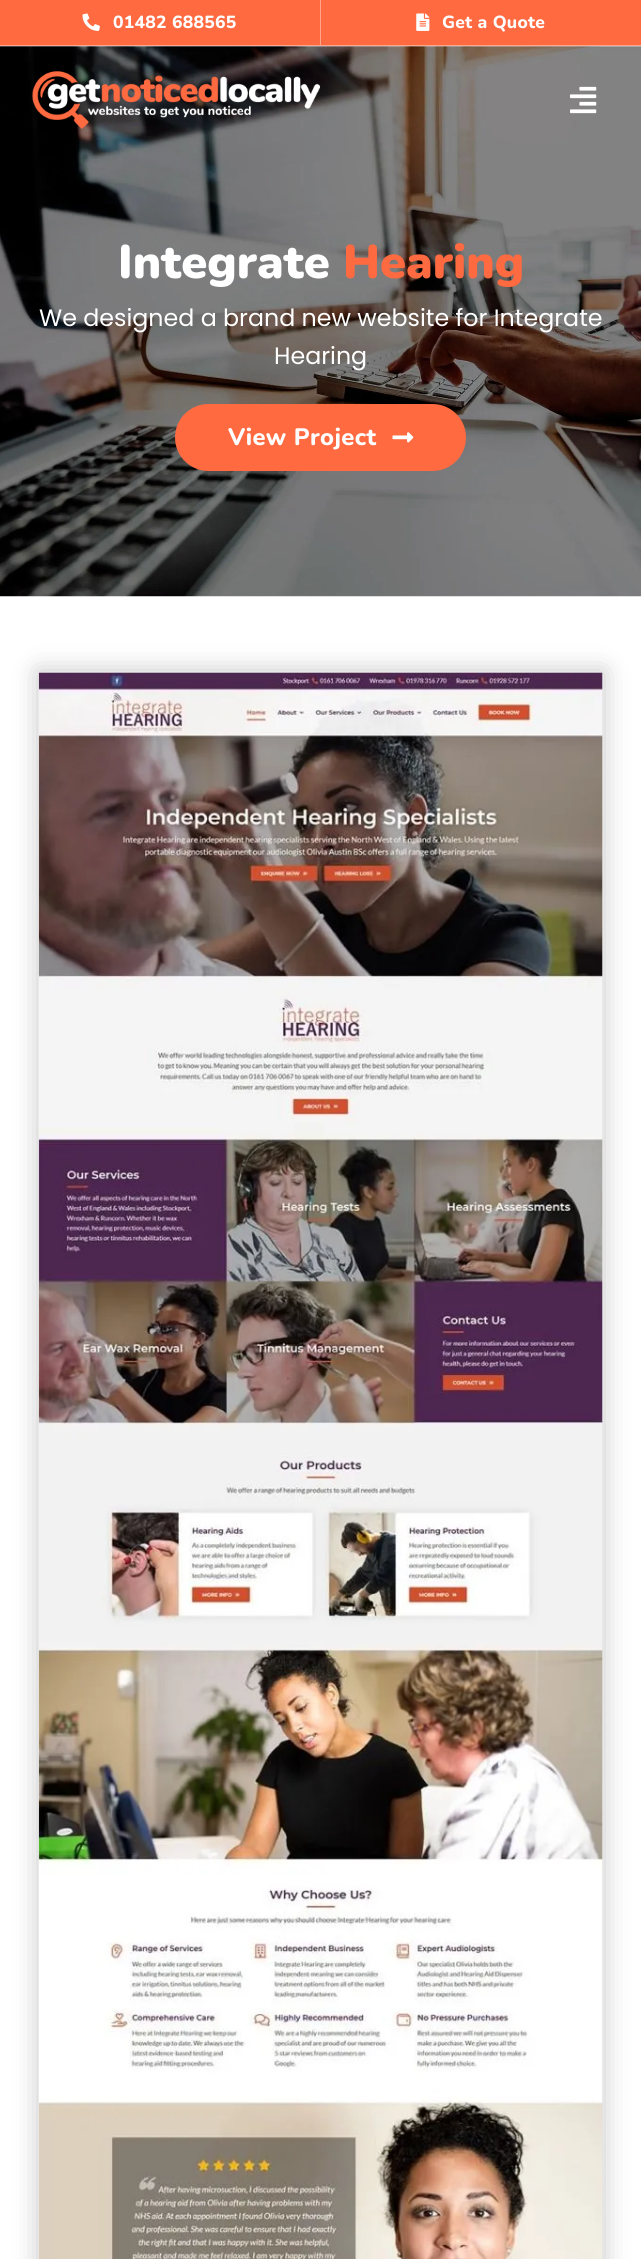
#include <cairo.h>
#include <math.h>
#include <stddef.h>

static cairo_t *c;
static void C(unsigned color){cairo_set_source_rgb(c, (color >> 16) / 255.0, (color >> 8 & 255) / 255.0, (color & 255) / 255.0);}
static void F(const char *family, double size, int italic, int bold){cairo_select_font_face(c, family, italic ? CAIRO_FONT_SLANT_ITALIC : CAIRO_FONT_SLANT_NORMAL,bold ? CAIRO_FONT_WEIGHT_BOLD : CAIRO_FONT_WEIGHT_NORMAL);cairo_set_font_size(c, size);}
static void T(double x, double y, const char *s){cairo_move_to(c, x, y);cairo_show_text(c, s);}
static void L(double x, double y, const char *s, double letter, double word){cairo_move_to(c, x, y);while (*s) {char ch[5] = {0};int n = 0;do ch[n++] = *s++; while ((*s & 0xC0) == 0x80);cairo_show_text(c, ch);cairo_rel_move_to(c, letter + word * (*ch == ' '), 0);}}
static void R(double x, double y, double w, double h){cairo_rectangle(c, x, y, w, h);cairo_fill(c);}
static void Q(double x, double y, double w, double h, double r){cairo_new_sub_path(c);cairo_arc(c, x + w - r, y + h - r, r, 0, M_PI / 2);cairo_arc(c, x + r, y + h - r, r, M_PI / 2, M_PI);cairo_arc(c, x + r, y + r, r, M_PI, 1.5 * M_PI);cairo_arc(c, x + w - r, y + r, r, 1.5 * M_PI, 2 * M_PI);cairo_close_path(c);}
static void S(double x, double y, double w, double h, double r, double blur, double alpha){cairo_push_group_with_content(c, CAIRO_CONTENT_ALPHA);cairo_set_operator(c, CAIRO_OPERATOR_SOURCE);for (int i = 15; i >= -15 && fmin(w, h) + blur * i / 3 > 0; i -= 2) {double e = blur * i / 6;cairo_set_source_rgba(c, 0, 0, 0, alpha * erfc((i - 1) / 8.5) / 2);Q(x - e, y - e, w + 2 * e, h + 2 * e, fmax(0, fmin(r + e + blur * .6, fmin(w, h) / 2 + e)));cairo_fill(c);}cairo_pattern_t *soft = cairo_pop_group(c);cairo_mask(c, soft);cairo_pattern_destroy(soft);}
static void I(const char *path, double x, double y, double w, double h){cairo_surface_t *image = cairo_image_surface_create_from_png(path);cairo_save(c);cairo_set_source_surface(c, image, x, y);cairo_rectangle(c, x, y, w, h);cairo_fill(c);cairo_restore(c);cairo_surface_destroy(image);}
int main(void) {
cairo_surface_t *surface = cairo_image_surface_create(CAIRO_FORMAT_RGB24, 641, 2259);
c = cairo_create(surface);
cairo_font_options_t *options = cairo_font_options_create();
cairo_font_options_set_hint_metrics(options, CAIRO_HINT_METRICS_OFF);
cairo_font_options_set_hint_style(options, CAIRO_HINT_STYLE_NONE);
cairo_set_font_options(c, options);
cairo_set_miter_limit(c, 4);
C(0xffffff);
cairo_paint(c);
C(0xff6a41);
R(0,0,641,46);
C(0xffa68d);
cairo_new_path(c);
cairo_move_to(c,321,0);
cairo_line_to(c,321,46);
cairo_line_to(c,320,45);
cairo_line_to(c,320,0);
cairo_close_path(c);
cairo_fill(c);
cairo_set_source_rgba(c,1,1,1,0.4);
cairo_new_path(c);
cairo_move_to(c,321,46);
cairo_line_to(c,0,46);
cairo_line_to(c,0,45);
cairo_line_to(c,320,45);
cairo_close_path(c);
cairo_fill(c);
I("1.png",82,13,18,18);
F("Nunito ExtraBold",17.5,0,0);
C(0xffffff);
L(113,28,"01482 688565",.25,0);
C(0xffa68d);
R(321,45,320,1);
I("2.png",416,13,14,18);
C(0xffffff);
L(442,28,"Get a Quote",.25,0);
I("5.png",0,46,641,551);
I("3.png",32,71,288,58);
I("4.png",570,86,27,28);
F("Nunito Black",47,0,0);
T(118,278,"Integrate");
C(0xff6a41);
T(343,278,"Hearing");
F("Poppins",23.75,0,0);
C(0xffffff);
T(39,326,"We designed a brand new website for Integrate");
T(274,364,"Hearing");
C(0xff6a41);
Q(176.5,405.5,288,64,32);
cairo_fill_preserve(c);
cairo_set_line_width(c,3);
cairo_stroke(c);
F("Nunito ExtraBold",23.75,0,0);
C(0xffffff);
L(228,445,"View Project",.4,0);
I("6.png",392,432,22,11);
C(0x000000);
S(38,671,566,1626,0,12.5,.22);
cairo_rectangle(c,38.5,671.5,565,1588);
C(0xe7e7e7);
cairo_set_line_width(c,1);
cairo_stroke(c);
I("7.png",38,672,565,1587);
cairo_surface_write_to_png(surface, "o.png");
cairo_font_options_destroy(options);
cairo_destroy(c);
cairo_surface_destroy(surface);
return 0;
}
